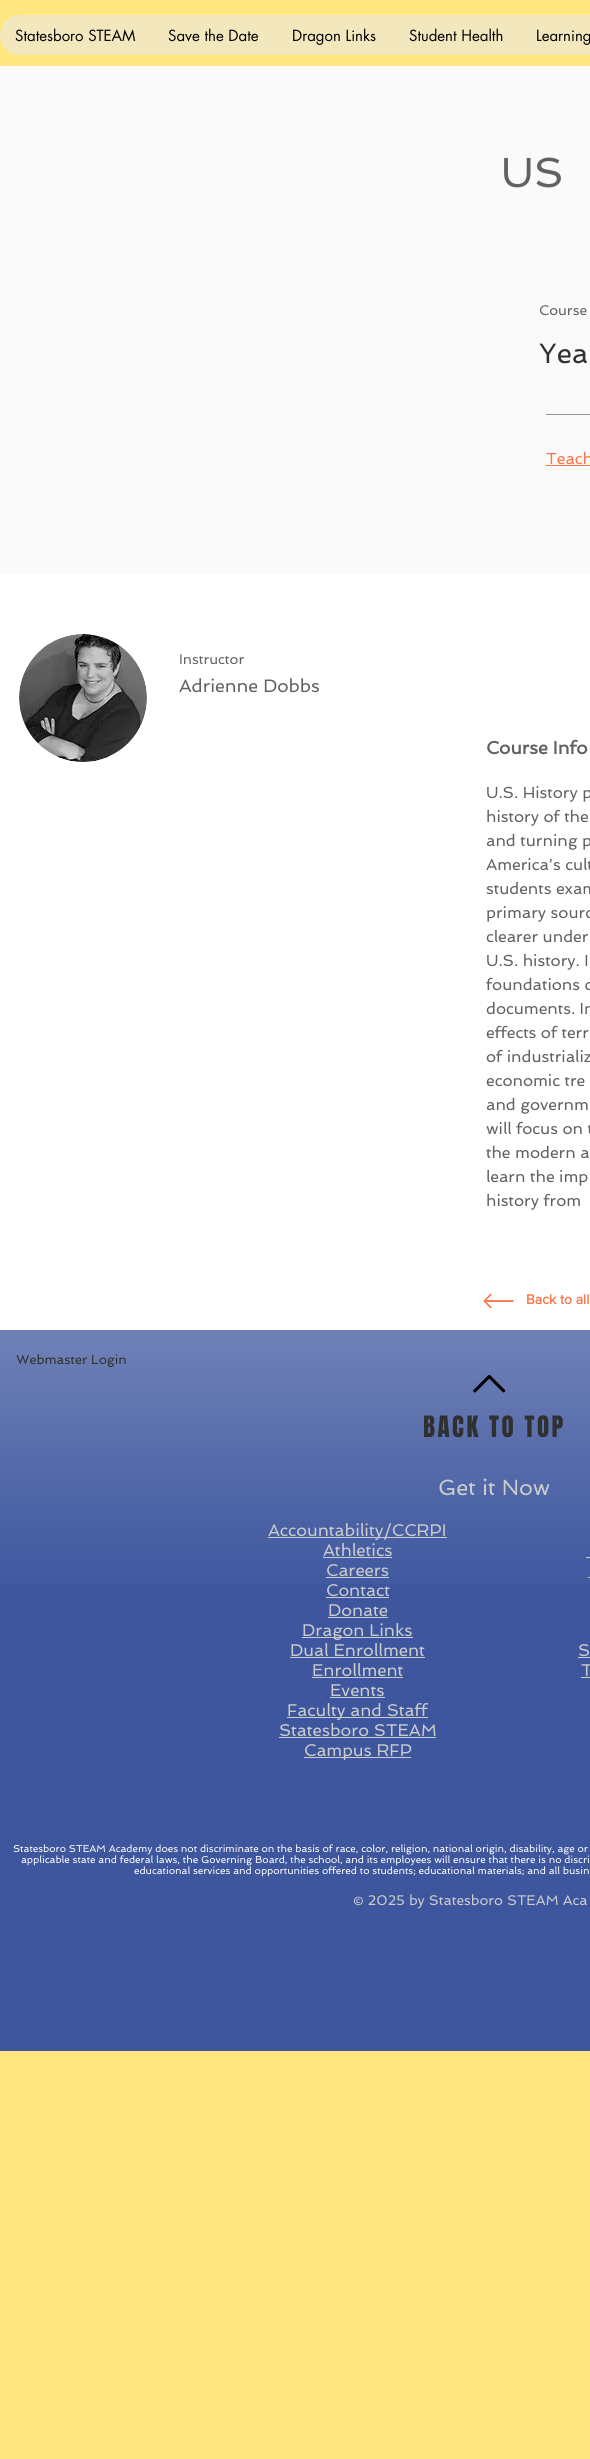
#include <cairo.h>
#include <math.h>
#include <stddef.h>

static cairo_t *c;
static void C(unsigned color){cairo_set_source_rgb(c, (color >> 16) / 255.0, (color >> 8 & 255) / 255.0, (color & 255) / 255.0);}
static void F(const char *family, double size, int italic, int bold){cairo_select_font_face(c, family, italic ? CAIRO_FONT_SLANT_ITALIC : CAIRO_FONT_SLANT_NORMAL,bold ? CAIRO_FONT_WEIGHT_BOLD : CAIRO_FONT_WEIGHT_NORMAL);cairo_set_font_size(c, size);}
static void T(double x, double y, const char *s){cairo_move_to(c, x, y);cairo_show_text(c, s);}
static void L(double x, double y, const char *s, double letter, double word){cairo_move_to(c, x, y);while (*s) {char ch[5] = {0};int n = 0;do ch[n++] = *s++; while ((*s & 0xC0) == 0x80);cairo_show_text(c, ch);cairo_rel_move_to(c, letter + word * (*ch == ' '), 0);}}
static void R(double x, double y, double w, double h){cairo_rectangle(c, x, y, w, h);cairo_fill(c);}
static void Q(double x, double y, double w, double h, double r){cairo_new_sub_path(c);cairo_arc(c, x + w - r, y + h - r, r, 0, M_PI / 2);cairo_arc(c, x + r, y + h - r, r, M_PI / 2, M_PI);cairo_arc(c, x + r, y + r, r, M_PI, 1.5 * M_PI);cairo_arc(c, x + w - r, y + r, r, 1.5 * M_PI, 2 * M_PI);cairo_close_path(c);}
static void I(const char *path, double x, double y, double w, double h){cairo_surface_t *image = cairo_image_surface_create_from_png(path);cairo_save(c);cairo_set_source_surface(c, image, x, y);cairo_rectangle(c, x, y, w, h);cairo_fill(c);cairo_restore(c);cairo_surface_destroy(image);}
int main(void) {
cairo_surface_t *surface = cairo_image_surface_create(CAIRO_FORMAT_RGB24, 590, 2459);
c = cairo_create(surface);
cairo_font_options_t *options = cairo_font_options_create();
cairo_font_options_set_hint_metrics(options, CAIRO_HINT_METRICS_OFF);
cairo_font_options_set_hint_style(options, CAIRO_HINT_STYLE_NONE);
cairo_set_font_options(c, options);
cairo_set_miter_limit(c, 4);
C(0xffe680);
cairo_paint(c);
C(0xf3e7be);
Q(0,15,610,40,20);
cairo_fill(c);
F("futura",15,0,0);
C(0x000000);
T(15,41,"Statesboro STEAM");
T(168,41,"Save the Date");
T(292,41,"Dragon Links");
T(409,41,"Student Health");
T(536,41,"Learning");
C(0xfafafa);
R(0,66,590,508);
F("Spinnaker",42,0,0);
C(0x616161);
T(501,187,"US");
F("Spinnaker",14,0,0);
T(539,315,"Course");
F("Spinnaker",28,0,0);
C(0x303030);
T(539,363,"Yea");
C(0x919191);
R(546,414,44,1);
F("Spinnaker",16,0,0);
C(0xfa7548);
T(546,464,"Teach");
R(546,465,44,1);
C(0xffffff);
R(0,574,590,756);
I("1.png",19,634,128,128);
F("Spinnaker",14,0,0);
C(0x616161);
T(179,664,"Instructor");
F("Spinnaker",18,0,0);
T(179,692,"Adrienne Dobbs");
F("Spinnaker",18,0,1);
T(486,754,"Course Info");
F("Spinnaker",16,0,0);
T(486,798,"U.S. History p");
T(486,822,"history of the");
T(486,846,"and turning p");
T(486,870,"America's cult");
T(486,894,"students exam");
T(486,918,"primary sourc");
T(486,942,"clearer under");
T(486,966,"U.S. history. I");
T(486,990,"foundations o");
T(486,1014,"documents. In");
T(486,1038,"effects of terr");
T(486,1062,"of industrializ");
T(486,1086,"economic tre");
T(486,1110,"and governm");
T(486,1134,"will focus on t");
T(486,1158,"the modern a");
T(486,1182,"learn the imp");
T(486,1206,"history from");
I("2.png",483,1293,31,16);
F("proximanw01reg",14,0,1);
C(0xfa7548);
T(526,1304,"Back to all");
C(0x3d569e);
R(0,1330,590,721);
I("3.png",0,1330,590,254);
F("Spinnaker",13,0,0);
C(0x303030);
T(16,1364,"Webmaster Login");
I("4.png",473,1374,33,19);
F("Anton",25,0,0);
L(423,1437,"BACK TO TOP",2.5,0);
F("Spinnaker",22,0,0);
C(0xcccccc);
T(438,1495,"Get it Now");
R(268,1537,179,1);
F("Spinnaker",17,0,0);
T(268,1536,"Accountability/CCRPI");
T(323,1556,"Athletics");
R(323,1557,69,1);
T(326,1576,"Careers");
R(326,1577,63,1);
T(326,1596,"Contact");
R(326,1597,63,1);
T(328,1616,"Donate");
R(328,1617,60,1);
R(302,1637,111,1);
T(302,1636,"Dragon Links");
T(290,1656,"Dual Enrollment");
R(290,1657,135,1);
T(312,1676,"Enrollment");
R(312,1677,91,1);
T(330,1696,"Events");
R(330,1697,55,1);
R(287,1717,141,1);
T(287,1716,"Faculty and Staff");
T(279,1736,"Statesboro STEAM");
R(279,1737,157,1);
R(304,1757,107,1);
T(304,1756,"Campus RFP");
R(586,1557,4,1);
R(588,1577,2,1);
T(578,1656,"S");
R(578,1657,12,1);
T(581,1676,"T");
R(581,1677,9,1);
F("Spinnaker",10,0,0);
C(0xffffff);
T(13,1852,"Statesboro STEAM Academy does not discriminate on the basis of race, color, religion, national origin, disability, age or");
T(21,1863,"applicable state and federal laws, the Governing Board, the school, and its employees will ensure that there is no discri");
T(134,1874,"educational services and opportunities offered to students; educational materials; and all busin");
F("Spinnaker",14,0,0);
C(0xcccccc);
T(353,1905,"© 2025 by Statesboro STEAM Aca");
cairo_surface_write_to_png(surface, "o.png");
cairo_font_options_destroy(options);
cairo_destroy(c);
cairo_surface_destroy(surface);
return 0;
}
